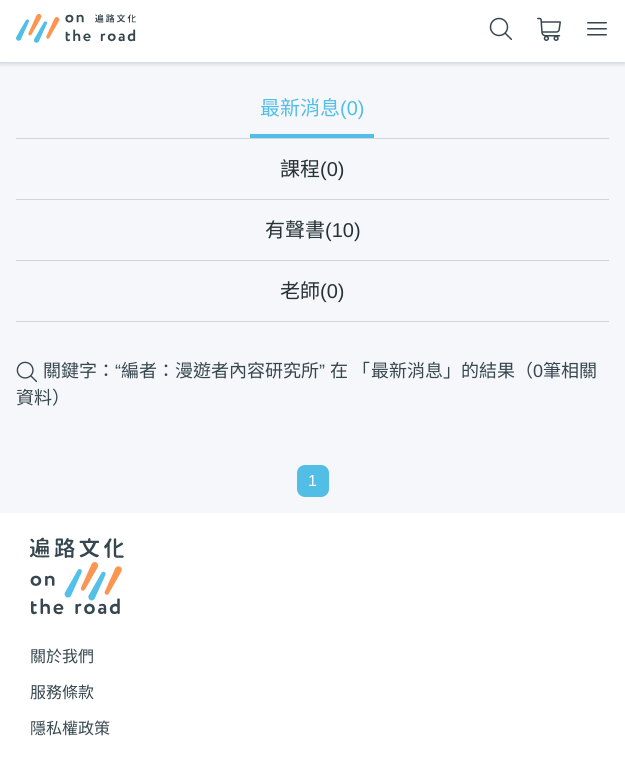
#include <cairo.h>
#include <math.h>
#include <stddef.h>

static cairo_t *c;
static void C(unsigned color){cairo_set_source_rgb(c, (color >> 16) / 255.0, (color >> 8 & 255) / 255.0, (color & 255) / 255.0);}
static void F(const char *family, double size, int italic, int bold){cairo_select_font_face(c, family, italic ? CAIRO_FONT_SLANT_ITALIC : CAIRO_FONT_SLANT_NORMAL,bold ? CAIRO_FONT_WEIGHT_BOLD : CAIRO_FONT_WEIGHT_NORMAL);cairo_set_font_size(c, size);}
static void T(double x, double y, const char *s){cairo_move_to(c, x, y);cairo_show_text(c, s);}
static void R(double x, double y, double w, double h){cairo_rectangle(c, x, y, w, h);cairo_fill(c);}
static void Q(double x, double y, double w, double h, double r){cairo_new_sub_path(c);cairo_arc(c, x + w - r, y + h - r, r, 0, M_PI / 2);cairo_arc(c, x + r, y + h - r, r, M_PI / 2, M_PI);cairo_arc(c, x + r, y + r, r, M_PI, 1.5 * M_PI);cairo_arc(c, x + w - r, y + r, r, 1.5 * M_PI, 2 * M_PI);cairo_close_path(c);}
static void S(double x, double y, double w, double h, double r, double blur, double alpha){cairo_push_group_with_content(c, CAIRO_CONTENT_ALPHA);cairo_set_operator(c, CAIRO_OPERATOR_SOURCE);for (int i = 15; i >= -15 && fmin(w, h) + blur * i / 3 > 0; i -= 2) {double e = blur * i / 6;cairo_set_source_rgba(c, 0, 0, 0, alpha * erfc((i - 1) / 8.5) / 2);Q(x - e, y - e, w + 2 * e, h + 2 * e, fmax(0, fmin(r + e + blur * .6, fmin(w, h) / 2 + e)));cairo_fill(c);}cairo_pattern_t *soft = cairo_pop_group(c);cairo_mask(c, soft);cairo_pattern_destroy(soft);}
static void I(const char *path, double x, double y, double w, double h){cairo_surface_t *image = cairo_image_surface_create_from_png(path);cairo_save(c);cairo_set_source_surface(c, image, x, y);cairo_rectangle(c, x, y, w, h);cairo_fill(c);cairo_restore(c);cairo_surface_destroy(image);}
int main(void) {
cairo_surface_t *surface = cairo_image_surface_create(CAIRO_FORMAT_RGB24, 625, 761);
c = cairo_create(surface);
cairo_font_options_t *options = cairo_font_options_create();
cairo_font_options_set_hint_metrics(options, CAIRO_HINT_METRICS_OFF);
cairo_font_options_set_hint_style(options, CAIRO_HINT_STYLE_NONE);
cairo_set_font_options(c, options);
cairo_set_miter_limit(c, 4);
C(0xf6f7fa);
cairo_paint(c);
C(0x37474f);
S(0,2,625,62,0,2,.2);
C(0xffffff);
R(0,0,625,62);
I("1.png",16,14,120,29);
I("2.png",489,17,24,23);
I("3.png",537,17,24,24);
I("4.png",587,22,20,14);
C(0xced8db);
R(16,138,593,1);
F("Noto Sans CJK TC",20,0,0);
C(0x52bee5);
T(260,115,"最新消息");
F("Liberation Sans",20,0,0);
T(340,115,"(0)");
R(250,134,124,4);
C(0xced8db);
R(16,199,593,1);
F("Noto Sans CJK TC",20,0,0);
C(0x263237);
T(280,176,"課程");
F("Liberation Sans",20,0,0);
T(320,176,"(0)");
C(0xced8db);
R(16,260,593,1);
F("Noto Sans CJK TC",20,0,0);
C(0x263237);
T(265,237,"有聲書");
F("Liberation Sans",20,0,0);
T(325,237,"(10)");
C(0xced8db);
R(16,321,593,1);
F("Noto Sans CJK TC",20,0,0);
C(0x263237);
T(280,298,"老師");
F("Liberation Sans",20,0,0);
T(320,298,"(0)");
I("5.png",16,361,22,22);
F("Noto Sans CJK TC",18,0,0);
C(0x37474f);
T(43,377,"關鍵字：");
F("Liberation Sans",18,0,0);
T(115,377,"“");
F("Noto Sans CJK TC",18,0,0);
T(121,377,"編者：漫遊者內容研究所");
F("Liberation Sans",18,0,0);
T(319,377,"”");
F("Noto Sans CJK TC",18,0,0);
T(330,377,"在 「");
T(371,377,"最新消息」的結果（");
F("Liberation Sans",18,0,0);
T(533,377,"0");
F("Noto Sans CJK TC",18,0,0);
T(543,377,"筆相關");
T(16,404,"資料）");
C(0x52bee5);
Q(297,465,32,32,8);
cairo_fill(c);
F("Liberation Sans",16,0,0);
C(0xffffff);
T(308,486,"1");
R(0,513,625,248);
I("6.png",30,537,94,78);
F("Noto Sans CJK TC",16,0,0);
C(0x37474f);
T(30,662,"關於我們");
T(30,698,"服務條款");
T(30,734,"隱私權政策");
cairo_surface_write_to_png(surface, "o.png");
cairo_font_options_destroy(options);
cairo_destroy(c);
cairo_surface_destroy(surface);
return 0;
}
